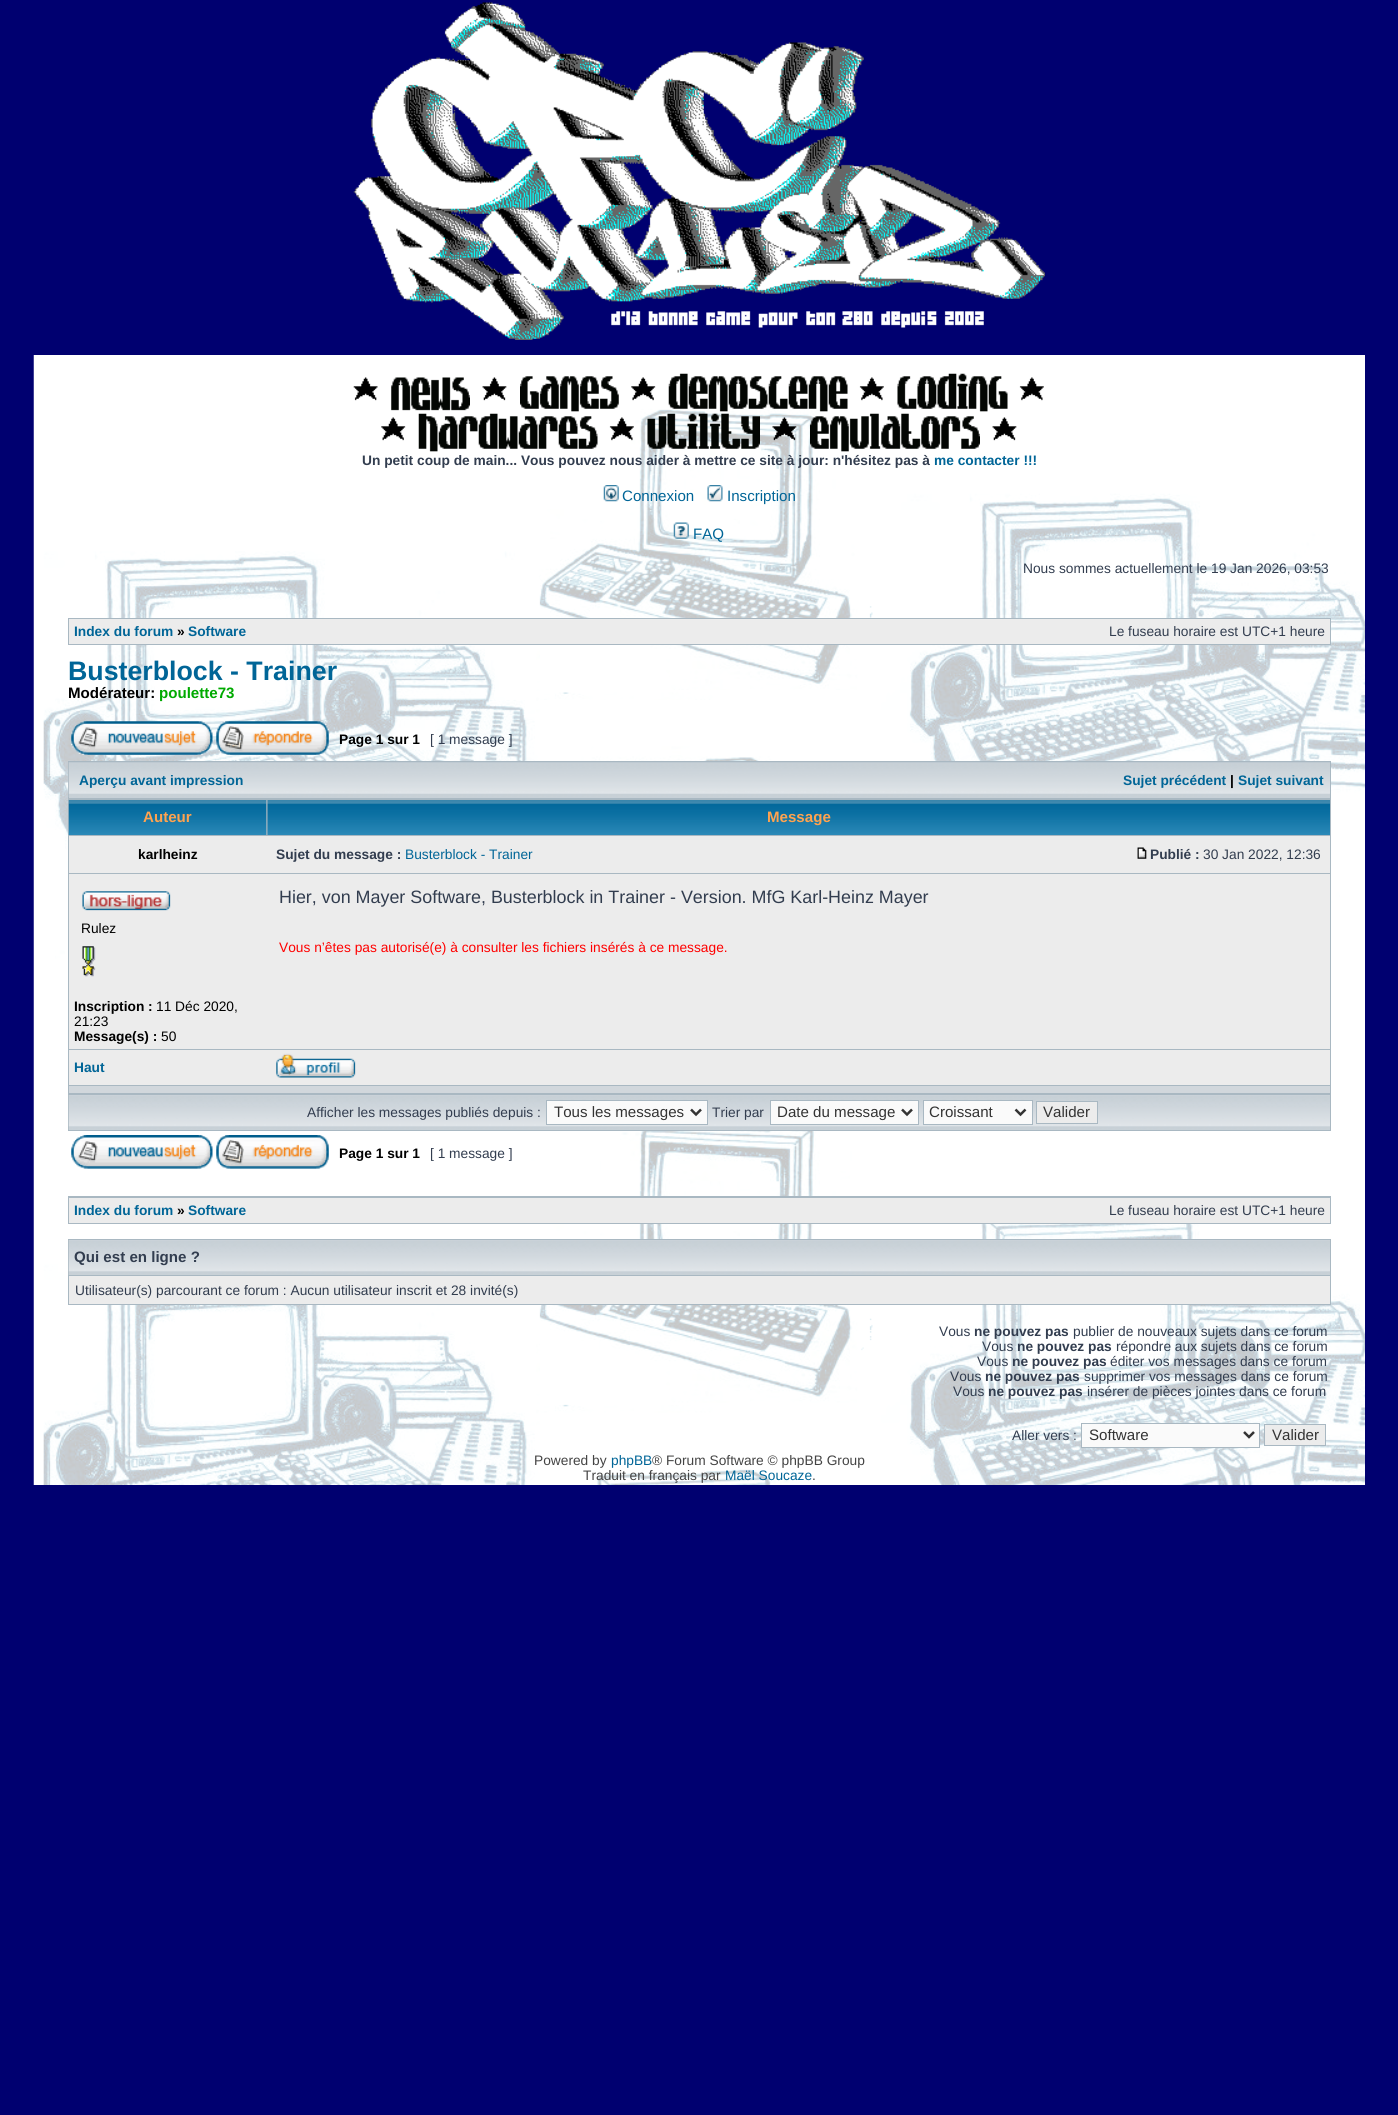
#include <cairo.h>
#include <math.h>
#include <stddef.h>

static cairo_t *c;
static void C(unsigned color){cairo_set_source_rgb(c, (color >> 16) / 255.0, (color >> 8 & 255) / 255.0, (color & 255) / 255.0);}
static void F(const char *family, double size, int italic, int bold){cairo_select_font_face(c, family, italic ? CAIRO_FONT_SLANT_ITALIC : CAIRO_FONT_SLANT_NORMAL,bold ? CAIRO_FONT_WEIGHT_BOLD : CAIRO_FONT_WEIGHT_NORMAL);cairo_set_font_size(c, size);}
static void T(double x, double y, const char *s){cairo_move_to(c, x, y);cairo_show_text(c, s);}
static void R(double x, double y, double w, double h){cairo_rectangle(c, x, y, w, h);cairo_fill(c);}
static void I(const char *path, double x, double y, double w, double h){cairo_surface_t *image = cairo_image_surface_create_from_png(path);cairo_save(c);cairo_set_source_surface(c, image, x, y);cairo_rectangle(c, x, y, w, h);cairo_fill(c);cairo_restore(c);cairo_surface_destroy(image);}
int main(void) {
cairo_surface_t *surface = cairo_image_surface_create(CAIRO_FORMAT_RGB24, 1398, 2115);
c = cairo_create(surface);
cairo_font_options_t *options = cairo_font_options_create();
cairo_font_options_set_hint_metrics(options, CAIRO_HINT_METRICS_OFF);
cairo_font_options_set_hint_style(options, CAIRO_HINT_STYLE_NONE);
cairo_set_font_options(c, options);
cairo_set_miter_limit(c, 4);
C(0x000070);
cairo_paint(c);
I("1.png",353,2,692,338);
I("2.png",33,355,1332,1130);
I("3.png",353,377,25,24);
I("4.png",391,377,79,34);
I("5.png",482,377,25,24);
I("6.png",520,376,99,36);
I("7.png",631,377,25,24);
I("8.png",668,373,180,39);
I("9.png",859,377,25,24);
I("10.png",897,373,111,39);
I("9.png",1019,377,25,24);
I("11.png",381,417,25,24);
I("12.png",418,413,180,39);
I("13.png",609,417,25,24);
I("14.png",647,413,113,36);
I("15.png",772,417,25,24);
I("16.png",810,413,170,39);
I("5.png",992,417,25,24);
F("Liberation Sans",13.75,0,1);
C(0x323d4f);
T(362,465,"Un petit coup de main... Vous pouvez nous aider à mettre ce site à jour: n'hésitez pas à");
C(0x006597);
T(934,465,"me contacter !!!");
I("17.png",603,485,16,17);
F("Liberation Sans",15.1,0,0);
T(622,501,"Connexion");
I("18.png",707,485,16,17);
T(727,501,"Inscription");
I("19.png",673,522,16,17);
T(693,539,"FAQ");
F("Liberation Sans",13.75,0,0);
C(0x323d4f);
T(1023,573,"Nous sommes actuellement le 19 Jan 2026, 03:53");
C(0xa9b8c2);
R(68,618,1263,27);
C(0xececec);
R(69,619,1261,25);
F("Liberation Sans",13.75,0,1);
C(0x006597);
T(74,636,"Index du forum");
C(0x000000);
T(177,636,"»");
C(0x006597);
T(188,636,"Software");
F("Liberation Sans",13.75,0,0);
C(0x323d4f);
T(1109,636,"Le fuseau horaire est UTC+1 heure");
F("Liberation Sans",26.75,0,1);
C(0x006597);
T(68,680,"Busterblock - Trainer");
F("Liberation Sans",15.1,0,1);
C(0x000000);
T(68,698,"Modérateur:");
C(0x00aa00);
T(159,698,"poulette73");
I("20.png",71,721,142,34);
I("21.png",216,721,113,34);
F("Liberation Sans",13.75,0,1);
C(0x000000);
T(339,744,"Page 1 sur 1");
F("Liberation Sans",13.75,0,0);
C(0x323d4f);
T(430,744,"[ 1 message ]");
C(0xa9b8c2);
R(68,761,1263,370);
C(0xc7d0d7);
R(69,797,1261,1);
I("22.png",68,762,1262,35);
F("Liberation Sans",13.75,0,1);
C(0x006597);
T(79,785,"Aperçu avant impression");
T(1123,785,"Sujet précédent");
C(0x000000);
T(1230,785,"|");
C(0x006597);
T(1238,785,"Sujet suivant");
I("23.png",68,800,199,35);
F("Liberation Sans",15.1,0,1);
C(0xffa34f);
T(143,822,"Auteur");
I("24.png",267,800,1063,35);
T(767,822,"Message");
C(0xececec);
R(69,836,1261,37);
F("Liberation Sans",13.75,0,1);
C(0x000000);
T(138,859,"karlheinz");
C(0x323d4f);
T(276,859,"Sujet du message :");
F("Liberation Sans",13.75,0,0);
C(0x006597);
T(405,859,"Busterblock - Trainer");
I("25.png",1137,847,10,12);
F("Liberation Sans",13.75,0,1);
C(0x323d4f);
T(1150,859,"Publié :");
F("Liberation Sans",13.75,0,0);
T(1203,859,"30 Jan 2022, 12:36");
C(0xececec);
R(69,874,1261,175);
I("26.png",82,891,89,20);
C(0x000000);
T(81,933,"Rulez");
I("27.png",82,946,14,31);
F("Liberation Sans",13.75,0,1);
T(74,1011,"Inscription :");
F("Liberation Sans",13.75,0,0);
T(156,1011,"11 Déc 2020,");
T(74,1026,"21:23");
F("Liberation Sans",13.75,0,1);
T(74,1041,"Message(s) :");
F("Liberation Sans",13.75,0,0);
T(161,1041,"50");
F("Liberation Sans",17.9,0,0);
C(0x323d4f);
T(279,903,"Hier, von Mayer Software, Busterblock in Trainer - Version. MfG Karl-Heinz Mayer");
F("Liberation Sans",13.75,0,0);
C(0xff0000);
T(279,952,"Vous n’êtes pas autorisé(e) à consulter les fichiers insérés à ce message.");
C(0xececec);
R(69,1050,1261,35);
F("Liberation Sans",13.75,0,1);
C(0x006597);
T(74,1072,"Haut");
I("28.png",276,1053,80,25);
C(0xd1d7dc);
R(69,1086,1261,7);
I("29.png",68,1095,1262,35);
F("Liberation Sans",13.75,0,0);
C(0x323d4f);
T(307,1117,"Afficher les messages publiés depuis :");
C(0xfafafa);
cairo_rectangle(c,546.5,1100.5,161,24);
cairo_fill_preserve(c);
C(0xa9b8c2);
cairo_set_line_width(c,1);
cairo_stroke(c);
cairo_new_path(c);
cairo_move_to(c,691,1109.5);
cairo_line_to(c,696,1114.5);
cairo_line_to(c,701,1109.5);
C(0x333333);
cairo_set_line_width(c,2.5);
cairo_stroke(c);
F("Liberation Sans",15.1,0,0);
T(554,1117,"Tous les messages");
F("Liberation Sans",13.75,0,0);
C(0x323d4f);
T(712,1117,"Trier par");
C(0xfafafa);
cairo_rectangle(c,770.5,1100.5,148,24);
cairo_fill_preserve(c);
C(0xa9b8c2);
cairo_set_line_width(c,1);
cairo_stroke(c);
cairo_new_path(c);
cairo_move_to(c,902,1109.5);
cairo_line_to(c,907,1114.5);
cairo_line_to(c,912,1109.5);
C(0x333333);
cairo_set_line_width(c,2.5);
cairo_stroke(c);
F("Liberation Sans",15.1,0,0);
T(777,1117,"Date du message");
C(0xfafafa);
cairo_rectangle(c,923.5,1100.5,109,24);
cairo_fill_preserve(c);
C(0xa9b8c2);
cairo_set_line_width(c,1);
cairo_stroke(c);
cairo_new_path(c);
cairo_move_to(c,1015.5,1109.5);
cairo_line_to(c,1020.5,1114.5);
cairo_line_to(c,1025.5,1109.5);
C(0x333333);
cairo_set_line_width(c,2.5);
cairo_stroke(c);
T(929,1117,"Croissant");
C(0xececec);
cairo_rectangle(c,1036.5,1101.5,61,22);
cairo_fill_preserve(c);
C(0xa9b8c2);
cairo_set_line_width(c,1);
cairo_stroke(c);
C(0x333333);
T(1043,1117,"Valider");
I("30.png",71,1135,142,34);
I("31.png",216,1135,113,34);
F("Liberation Sans",13.75,0,1);
C(0x000000);
T(339,1158,"Page 1 sur 1");
F("Liberation Sans",13.75,0,0);
C(0x323d4f);
T(430,1158,"[ 1 message ]");
C(0xa9b8c2);
R(68,1196,1263,28);
C(0xececec);
R(69,1198,1261,25);
F("Liberation Sans",13.75,0,1);
C(0x006597);
T(74,1215,"Index du forum");
C(0x000000);
T(177,1215,"»");
C(0x006597);
T(188,1215,"Software");
F("Liberation Sans",13.75,0,0);
C(0x323d4f);
T(1109,1215,"Le fuseau horaire est UTC+1 heure");
C(0xa9b8c2);
R(68,1239,1263,66);
I("29.png",68,1240,1262,35);
F("Liberation Sans",15.1,0,1);
C(0x323d4f);
T(74,1262,"Qui est en ligne ?");
C(0xececec);
R(69,1276,1261,28);
F("Liberation Sans",13.75,0,0);
C(0x323d4f);
T(75,1295,"Utilisateur(s) parcourant ce forum : Aucun utilisateur inscrit et 28 invité(s)");
T(939,1336,"Vous");
F("Liberation Sans",13.75,0,1);
T(974,1336,"ne pouvez pas");
F("Liberation Sans",13.75,0,0);
T(1073,1336,"publier de nouveaux sujets dans ce forum");
T(982,1351,"Vous");
F("Liberation Sans",13.75,0,1);
T(1017,1351,"ne pouvez pas");
F("Liberation Sans",13.75,0,0);
T(1116,1351,"répondre aux sujets dans ce forum");
T(977,1366,"Vous");
F("Liberation Sans",13.75,0,1);
T(1012,1366,"ne pouvez pas");
F("Liberation Sans",13.75,0,0);
T(1110,1366,"éditer vos messages dans ce forum");
T(950,1381,"Vous");
F("Liberation Sans",13.75,0,1);
T(985,1381,"ne pouvez pas");
F("Liberation Sans",13.75,0,0);
T(1084,1381,"supprimer vos messages dans ce forum");
T(953,1396,"Vous");
F("Liberation Sans",13.75,0,1);
T(988,1396,"ne pouvez pas");
F("Liberation Sans",13.75,0,0);
T(1087,1396,"insérer de pièces jointes dans ce forum");
T(1012,1440,"Aller vers :");
C(0xfafafa);
cairo_rectangle(c,1081.5,1423.5,178,24);
cairo_fill_preserve(c);
C(0xa9b8c2);
cairo_stroke(c);
cairo_new_path(c);
cairo_move_to(c,1244,1432);
cairo_line_to(c,1249,1437);
cairo_line_to(c,1254,1432);
C(0x333333);
cairo_set_line_width(c,2.5);
cairo_stroke(c);
F("Liberation Sans",15.1,0,0);
T(1089,1440,"Software");
C(0xececec);
cairo_rectangle(c,1264.5,1424.5,61,21);
cairo_fill_preserve(c);
C(0xa9b8c2);
cairo_set_line_width(c,1);
cairo_stroke(c);
C(0x333333);
T(1272,1440,"Valider");
F("Liberation Sans",13.75,0,0);
C(0x444444);
T(534,1465,"Powered by");
C(0x006597);
T(611,1465,"phpBB");
C(0x444444);
T(652,1465,"® Forum Software © phpBB Group");
T(583,1480,"Traduit en français par");
C(0x006597);
T(725,1480,"Maël Soucaze");
C(0x444444);
T(812,1480,".");
cairo_surface_write_to_png(surface, "o.png");
cairo_font_options_destroy(options);
cairo_destroy(c);
cairo_surface_destroy(surface);
return 0;
}
